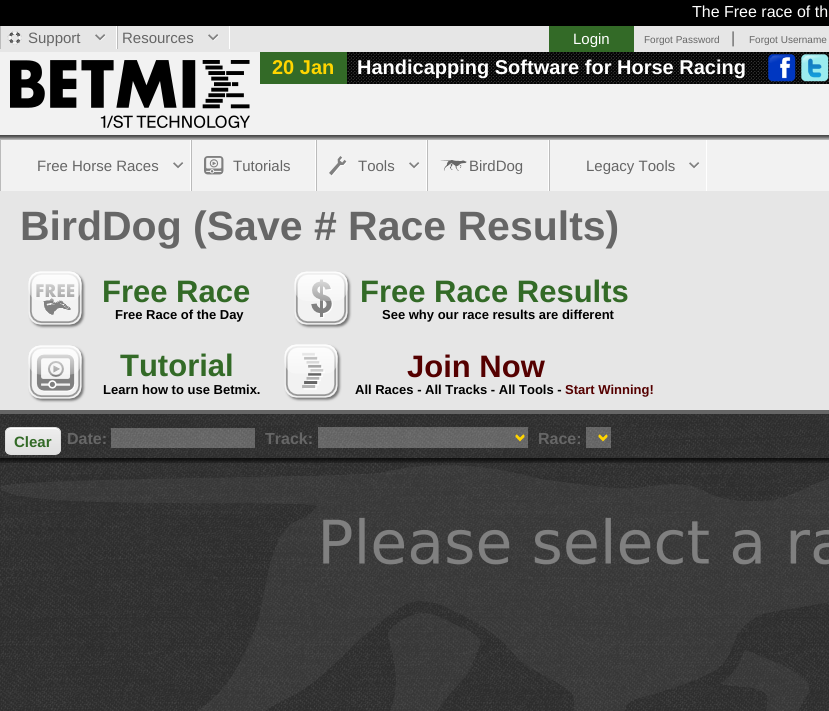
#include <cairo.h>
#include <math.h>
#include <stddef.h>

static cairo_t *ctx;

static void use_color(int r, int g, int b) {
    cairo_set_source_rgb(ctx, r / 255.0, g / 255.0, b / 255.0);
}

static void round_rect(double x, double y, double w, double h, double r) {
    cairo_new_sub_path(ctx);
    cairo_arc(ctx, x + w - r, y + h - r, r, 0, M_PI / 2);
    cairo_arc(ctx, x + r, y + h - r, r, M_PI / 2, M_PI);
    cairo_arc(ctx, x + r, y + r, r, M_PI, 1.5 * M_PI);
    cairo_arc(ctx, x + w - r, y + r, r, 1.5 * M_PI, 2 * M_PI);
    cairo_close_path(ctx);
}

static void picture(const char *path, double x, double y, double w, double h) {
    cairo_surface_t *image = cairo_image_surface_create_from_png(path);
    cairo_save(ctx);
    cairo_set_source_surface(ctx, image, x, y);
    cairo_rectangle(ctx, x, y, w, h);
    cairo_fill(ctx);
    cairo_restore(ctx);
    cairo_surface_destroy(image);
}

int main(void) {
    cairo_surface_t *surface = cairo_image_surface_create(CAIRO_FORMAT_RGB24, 829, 711);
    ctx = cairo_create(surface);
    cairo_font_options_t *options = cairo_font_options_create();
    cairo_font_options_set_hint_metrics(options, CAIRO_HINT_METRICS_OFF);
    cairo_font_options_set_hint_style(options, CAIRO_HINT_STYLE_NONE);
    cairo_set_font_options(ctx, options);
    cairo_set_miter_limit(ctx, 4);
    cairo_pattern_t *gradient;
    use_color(242, 242, 242);
    cairo_paint(ctx);
    use_color(0, 0, 0);
    cairo_rectangle(ctx, 0, 0, 829, 26);
    cairo_fill(ctx);
    cairo_select_font_face(ctx, "Liberation Sans", CAIRO_FONT_SLANT_NORMAL, CAIRO_FONT_WEIGHT_NORMAL);
    cairo_set_font_size(ctx, 16);
    use_color(255, 255, 255);
    cairo_move_to(ctx, 692, 17);
    cairo_show_text(ctx, "The Free race of th");
    use_color(230, 230, 230);
    cairo_rectangle(ctx, 0, 26, 829, 26);
    cairo_fill(ctx);
    picture("img1.png", 7, 31, 15, 14);
    use_color(255, 255, 255);
    cairo_rectangle(ctx, 116, 26, 1, 23);
    cairo_fill(ctx);
    use_color(187, 187, 187);
    cairo_rectangle(ctx, 0, 26, 1, 23);
    cairo_fill(ctx);
    picture("img2.png", 95, 34, 11, 7);
    cairo_set_font_size(ctx, 15);
    use_color(102, 102, 102);
    cairo_move_to(ctx, 28, 43);
    cairo_show_text(ctx, "Support");
    use_color(255, 255, 255);
    cairo_rectangle(ctx, 229, 26, 1, 23);
    cairo_fill(ctx);
    use_color(187, 187, 187);
    cairo_rectangle(ctx, 117, 26, 1, 23);
    cairo_fill(ctx);
    picture("img2.png", 208, 34, 11, 7);
    use_color(102, 102, 102);
    cairo_move_to(ctx, 122, 43);
    cairo_show_text(ctx, "Resources");
    use_color(51, 106, 39);
    cairo_rectangle(ctx, 549, 26, 85, 26);
    cairo_fill(ctx);
    use_color(255, 255, 255);
    cairo_move_to(ctx, 573, 44);
    cairo_show_text(ctx, "Login");
    cairo_set_font_size(ctx, 10);
    use_color(102, 102, 102);
    cairo_move_to(ctx, 644, 43);
    cairo_show_text(ctx, "Forgot Password");
    cairo_set_font_size(ctx, 16);
    cairo_move_to(ctx, 731, 43);
    cairo_show_text(ctx, "|");
    cairo_set_font_size(ctx, 10);
    cairo_move_to(ctx, 749, 43);
    cairo_show_text(ctx, "Forgot Username");
    picture("img3.png", 347, 52, 482, 32);
    picture("img4.png", 10, 60, 240, 68);
    use_color(51, 106, 39);
    cairo_rectangle(ctx, 260, 52, 87, 32);
    cairo_fill(ctx);
    cairo_select_font_face(ctx, "Liberation Sans", CAIRO_FONT_SLANT_NORMAL, CAIRO_FONT_WEIGHT_BOLD);
    cairo_set_font_size(ctx, 20);
    use_color(255, 213, 0);
    cairo_move_to(ctx, 272, 74);
    cairo_show_text(ctx, "20 Jan");
    use_color(255, 255, 255);
    cairo_move_to(ctx, 357, 74);
    cairo_show_text(ctx, "Handicapping Software for Horse Racing");
    picture("img5.png", 768, 54, 28, 28);
    picture("img6.png", 801, 54, 28, 28);
    picture("img7.png", 0, 135, 829, 5);
    cairo_rectangle(ctx, 190, 140, 1, 51);
    cairo_fill(ctx);
    use_color(187, 187, 187);
    cairo_rectangle(ctx, 0, 140, 1, 51);
    cairo_fill(ctx);
    picture("img8.png", 173, 162, 11, 7);
    cairo_select_font_face(ctx, "Liberation Sans", CAIRO_FONT_SLANT_NORMAL, CAIRO_FONT_WEIGHT_NORMAL);
    cairo_set_font_size(ctx, 15);
    use_color(102, 102, 102);
    cairo_move_to(ctx, 37, 171);
    cairo_show_text(ctx, "Free Horse Races");
    picture("img9.png", 204, 156, 20, 19);
    use_color(255, 255, 255);
    cairo_rectangle(ctx, 315, 140, 1, 51);
    cairo_fill(ctx);
    use_color(187, 187, 187);
    cairo_rectangle(ctx, 191, 140, 1, 51);
    cairo_fill(ctx);
    use_color(102, 102, 102);
    cairo_move_to(ctx, 233, 171);
    cairo_show_text(ctx, "Tutorials");
    picture("img10.png", 329, 156, 18, 20);
    use_color(255, 255, 255);
    cairo_rectangle(ctx, 426, 140, 1, 51);
    cairo_fill(ctx);
    use_color(187, 187, 187);
    cairo_rectangle(ctx, 316, 140, 1, 51);
    cairo_fill(ctx);
    picture("img8.png", 409, 162, 11, 7);
    use_color(102, 102, 102);
    cairo_move_to(ctx, 358, 171);
    cairo_show_text(ctx, "Tools");
    picture("img11.png", 440, 160, 27, 11);
    use_color(255, 255, 255);
    cairo_rectangle(ctx, 548, 140, 1, 51);
    cairo_fill(ctx);
    use_color(187, 187, 187);
    cairo_rectangle(ctx, 427, 140, 1, 51);
    cairo_fill(ctx);
    use_color(102, 102, 102);
    cairo_move_to(ctx, 469, 171);
    cairo_show_text(ctx, "BirdDog");
    use_color(255, 255, 255);
    cairo_rectangle(ctx, 706, 140, 1, 51);
    cairo_fill(ctx);
    use_color(187, 187, 187);
    cairo_rectangle(ctx, 549, 140, 1, 51);
    cairo_fill(ctx);
    picture("img8.png", 689, 162, 11, 7);
    use_color(102, 102, 102);
    cairo_move_to(ctx, 586, 171);
    cairo_show_text(ctx, "Legacy Tools");
    use_color(230, 230, 230);
    cairo_rectangle(ctx, 0, 191, 829, 219);
    cairo_fill(ctx);
    use_color(102, 102, 102);
    cairo_rectangle(ctx, 0, 410, 829, 4);
    cairo_fill(ctx);
    cairo_select_font_face(ctx, "Liberation Sans", CAIRO_FONT_SLANT_NORMAL, CAIRO_FONT_WEIGHT_BOLD);
    cairo_set_font_size(ctx, 41);
    cairo_move_to(ctx, 20, 240);
    cairo_show_text(ctx, "BirdDog (Save # Race Results)");
    picture("img12.png", 28, 271, 58, 58);
    cairo_set_font_size(ctx, 31);
    use_color(51, 106, 39);
    cairo_move_to(ctx, 102, 302);
    cairo_show_text(ctx, "Free Race");
    cairo_set_font_size(ctx, 13);
    use_color(0, 0, 0);
    cairo_move_to(ctx, 115, 319);
    cairo_show_text(ctx, "Free Race of the Day");
    picture("img13.png", 294, 271, 58, 58);
    cairo_set_font_size(ctx, 31);
    use_color(51, 106, 39);
    cairo_move_to(ctx, 360, 302);
    cairo_show_text(ctx, "Free Race Results");
    cairo_set_font_size(ctx, 13);
    use_color(0, 0, 0);
    cairo_move_to(ctx, 382, 319);
    cairo_show_text(ctx, "See why our race results are different");
    picture("img14.png", 28, 345, 58, 58);
    cairo_set_font_size(ctx, 31);
    use_color(51, 106, 39);
    cairo_move_to(ctx, 120, 376);
    cairo_show_text(ctx, "Tutorial");
    cairo_set_font_size(ctx, 13);
    use_color(0, 0, 0);
    cairo_move_to(ctx, 103, 394);
    cairo_show_text(ctx, "Learn how to use Betmix.");
    picture("img15.png", 284, 344, 58, 58);
    cairo_set_font_size(ctx, 31);
    use_color(85, 0, 0);
    cairo_move_to(ctx, 407, 377);
    cairo_show_text(ctx, "Join Now");
    cairo_set_font_size(ctx, 13);
    use_color(0, 0, 0);
    cairo_move_to(ctx, 355, 394);
    cairo_show_text(ctx, "All Races - All Tracks - All Tools -");
    use_color(85, 0, 0);
    cairo_move_to(ctx, 565, 394);
    cairo_show_text(ctx, "Start Winning!");
    picture("img16.png", 0, 414, 829, 297);
    cairo_save(ctx);
    round_rect(5, 427, 56, 28, 6);
    cairo_clip(ctx);
    gradient = cairo_pattern_create_linear(6, 428, 6, 454);
    cairo_pattern_add_color_stop_rgba(gradient, 0.05, 0.929, 0.929, 0.929, 1);
    cairo_pattern_add_color_stop_rgba(gradient, 1, 0.875, 0.875, 0.875, 1);
    cairo_set_source(ctx, gradient);
    cairo_pattern_destroy(gradient);
    cairo_rectangle(ctx, 5, 428, 56, 26);
    cairo_fill(ctx);
    cairo_restore(ctx);
    use_color(255, 255, 255);
    cairo_new_path(ctx);
    cairo_move_to(ctx, 11, 429);
    cairo_line_to(ctx, 55, 429);
    cairo_curve_to(ctx, 58, 429, 60, 431, 60, 434);
    cairo_curve_to(ctx, 60, 426, 53, 428, 48, 428);
    cairo_line_to(ctx, 18, 428);
    cairo_curve_to(ctx, 13, 428, 6, 426, 6, 434);
    cairo_curve_to(ctx, 6, 431, 8, 429, 11, 429);
    cairo_close_path(ctx);
    cairo_fill(ctx);
    round_rect(5.5, 427.5, 55, 27, 5.5);
    use_color(220, 220, 220);
    cairo_set_line_width(ctx, 1);
    cairo_stroke(ctx);
    cairo_set_font_size(ctx, 15);
    use_color(51, 106, 39);
    cairo_move_to(ctx, 14, 447);
    cairo_show_text(ctx, "Clear");
    cairo_set_font_size(ctx, 16);
    use_color(102, 102, 102);
    cairo_move_to(ctx, 67, 444);
    cairo_show_text(ctx, "Date:");
    picture("img17.png", 111, 428, 144, 20);
    cairo_move_to(ctx, 265, 444);
    cairo_show_text(ctx, "Track:");
    picture("img18.png", 318, 427, 210, 21);
    cairo_new_path(ctx);
    cairo_move_to(ctx, 516, 436);
    cairo_line_to(ctx, 520, 440);
    cairo_line_to(ctx, 524, 436);
    use_color(255, 213, 0);
    cairo_set_line_width(ctx, 2);
    cairo_stroke(ctx);
    use_color(102, 102, 102);
    cairo_move_to(ctx, 538, 444);
    cairo_show_text(ctx, "Race:");
    picture("img19.png", 586, 427, 25, 21);
    cairo_new_path(ctx);
    cairo_move_to(ctx, 599, 436);
    cairo_line_to(ctx, 603, 440);
    cairo_line_to(ctx, 607, 436);
    use_color(255, 213, 0);
    cairo_stroke(ctx);
    picture("img20.png", 0, 458, 829, 5);
    picture("img21.png", 0, 465, 829, 246);
    cairo_surface_write_to_png(surface, "result.png");
    cairo_font_options_destroy(options);
    cairo_destroy(ctx);
    cairo_surface_destroy(surface);
    return 0;
}
